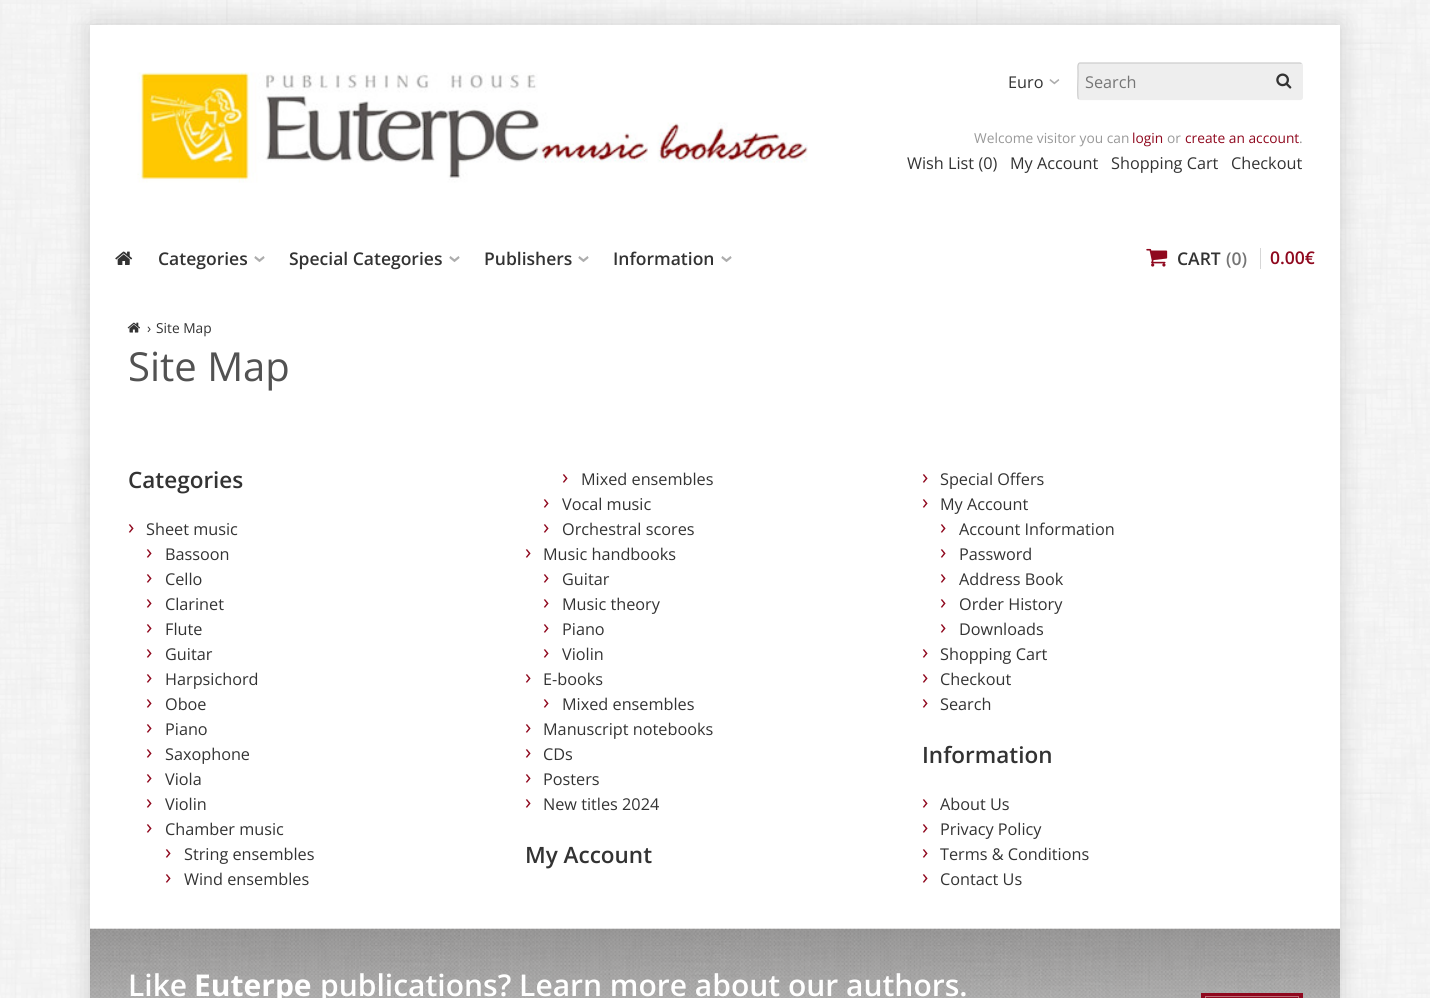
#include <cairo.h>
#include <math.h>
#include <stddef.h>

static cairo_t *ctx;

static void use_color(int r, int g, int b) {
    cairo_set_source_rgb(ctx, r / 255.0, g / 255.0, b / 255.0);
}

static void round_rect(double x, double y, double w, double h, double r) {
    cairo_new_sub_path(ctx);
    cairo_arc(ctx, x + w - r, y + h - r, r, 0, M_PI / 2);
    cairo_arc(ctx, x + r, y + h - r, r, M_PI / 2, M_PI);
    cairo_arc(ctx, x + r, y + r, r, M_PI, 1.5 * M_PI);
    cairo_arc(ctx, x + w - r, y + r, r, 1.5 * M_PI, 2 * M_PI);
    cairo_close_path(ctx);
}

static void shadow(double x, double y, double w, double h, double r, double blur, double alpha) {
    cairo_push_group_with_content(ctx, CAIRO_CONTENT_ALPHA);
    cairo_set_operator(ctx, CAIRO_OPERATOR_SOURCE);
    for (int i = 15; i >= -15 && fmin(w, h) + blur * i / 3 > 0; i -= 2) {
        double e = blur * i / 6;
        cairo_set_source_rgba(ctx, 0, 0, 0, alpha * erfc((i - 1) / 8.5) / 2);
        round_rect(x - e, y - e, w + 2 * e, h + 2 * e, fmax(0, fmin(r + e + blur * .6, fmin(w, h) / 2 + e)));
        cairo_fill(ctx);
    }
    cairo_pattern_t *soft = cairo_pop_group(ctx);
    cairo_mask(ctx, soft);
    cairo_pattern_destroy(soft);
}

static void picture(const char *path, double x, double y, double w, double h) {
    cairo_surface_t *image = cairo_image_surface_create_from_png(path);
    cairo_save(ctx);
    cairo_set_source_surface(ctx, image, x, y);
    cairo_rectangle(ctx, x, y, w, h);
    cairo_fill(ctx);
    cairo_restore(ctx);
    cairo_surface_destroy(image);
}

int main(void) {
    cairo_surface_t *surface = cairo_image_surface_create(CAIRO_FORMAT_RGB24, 1430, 998);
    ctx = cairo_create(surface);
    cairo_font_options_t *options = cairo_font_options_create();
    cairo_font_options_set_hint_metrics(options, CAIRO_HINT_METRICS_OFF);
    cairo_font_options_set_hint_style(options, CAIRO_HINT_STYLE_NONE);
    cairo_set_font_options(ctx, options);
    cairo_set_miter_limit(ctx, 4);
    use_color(255, 255, 255);
    cairo_paint(ctx);
    picture("img1.png", 0, 0, 1430, 998);
    use_color(0, 0, 0);
    shadow(90, 25, 1250, 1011, 0, 12.5, 0.15);
    use_color(255, 255, 255);
    cairo_rectangle(ctx, 90, 25, 1250, 904);
    cairo_fill(ctx);
    picture("img2.png", 137, 72, 671, 111);
    cairo_select_font_face(ctx, "Open Sans", CAIRO_FONT_SLANT_NORMAL, CAIRO_FONT_WEIGHT_NORMAL);
    cairo_set_font_size(ctx, 16.25);
    use_color(51, 51, 51);
    cairo_move_to(ctx, 1008, 88);
    cairo_show_text(ctx, "Euro");
    cairo_set_font_size(ctx, 24);
    use_color(173, 173, 173);
    cairo_save(ctx);
    cairo_translate(ctx, 1048, 78);
    cairo_rotate(ctx, 90 * M_PI / 180);
    cairo_move_to(ctx, 0, 0);
    cairo_show_text(ctx, "›");
    cairo_restore(ctx);
    use_color(238, 238, 238);
    round_rect(1078, 63, 225, 37, 2.5);
    cairo_fill(ctx);
    cairo_new_path(ctx);
    cairo_move_to(ctx, 1301.5, 63.5);
    cairo_curve_to(ctx, 1303, 65, 1302, 83.5, 1302, 86.5);
    cairo_line_to(ctx, 1302, 92);
    cairo_curve_to(ctx, 1302, 93, 1303, 99.5, 1300, 99.5);
    cairo_line_to(ctx, 1080, 99.5);
    cairo_line_to(ctx, 1078.5, 99);
    cairo_set_line_width(ctx, 1.2);
    cairo_stroke(ctx);
    cairo_new_path(ctx);
    cairo_move_to(ctx, 1078.5, 99);
    cairo_curve_to(ctx, 1077, 97.5, 1078, 79, 1078, 76);
    cairo_line_to(ctx, 1078, 70.5);
    cairo_curve_to(ctx, 1078, 69.5, 1077, 63, 1080, 63);
    cairo_line_to(ctx, 1300, 63);
    cairo_line_to(ctx, 1301.5, 63.5);
    use_color(204, 204, 204);
    cairo_stroke(ctx);
    cairo_set_font_size(ctx, 16.25);
    use_color(117, 117, 117);
    cairo_move_to(ctx, 1085, 88);
    cairo_show_text(ctx, "Search");
    picture("img3.png", 1276, 73, 16, 16);
    cairo_set_font_size(ctx, 13.75);
    use_color(153, 153, 153);
    cairo_move_to(ctx, 974, 143);
    cairo_show_text(ctx, "Welcome visitor you can");
    use_color(143, 8, 30);
    cairo_move_to(ctx, 1132, 143);
    cairo_show_text(ctx, "login");
    use_color(153, 153, 153);
    cairo_move_to(ctx, 1167, 143);
    cairo_show_text(ctx, "or");
    use_color(143, 8, 30);
    cairo_move_to(ctx, 1185, 143);
    cairo_show_text(ctx, "create an account");
    use_color(153, 153, 153);
    cairo_move_to(ctx, 1299, 143);
    cairo_show_text(ctx, ".");
    cairo_set_font_size(ctx, 16.25);
    use_color(51, 51, 51);
    cairo_move_to(ctx, 907, 169);
    cairo_show_text(ctx, "Wish List (0)");
    cairo_move_to(ctx, 1010, 169);
    cairo_show_text(ctx, "My Account");
    cairo_move_to(ctx, 1111, 169);
    cairo_show_text(ctx, "Shopping Cart");
    cairo_move_to(ctx, 1231, 169);
    cairo_show_text(ctx, "Checkout");
    picture("img4.png", 115, 251, 18, 14);
    cairo_select_font_face(ctx, "Open Sans SemiBold", CAIRO_FONT_SLANT_NORMAL, CAIRO_FONT_WEIGHT_NORMAL);
    cairo_set_font_size(ctx, 17.5);
    cairo_move_to(ctx, 158, 265);
    cairo_show_text(ctx, "Categories");
    cairo_set_font_size(ctx, 24);
    use_color(173, 173, 173);
    cairo_save(ctx);
    cairo_translate(ctx, 253, 255);
    cairo_rotate(ctx, 90 * M_PI / 180);
    cairo_move_to(ctx, 0, 0);
    cairo_show_text(ctx, "›");
    cairo_restore(ctx);
    cairo_set_font_size(ctx, 17.5);
    use_color(51, 51, 51);
    cairo_move_to(ctx, 289, 265);
    cairo_show_text(ctx, "Special Categories");
    cairo_set_font_size(ctx, 24);
    use_color(173, 173, 173);
    cairo_save(ctx);
    cairo_translate(ctx, 448, 255);
    cairo_rotate(ctx, 90 * M_PI / 180);
    cairo_move_to(ctx, 0, 0);
    cairo_show_text(ctx, "›");
    cairo_restore(ctx);
    cairo_set_font_size(ctx, 17.5);
    use_color(51, 51, 51);
    cairo_move_to(ctx, 484, 265);
    cairo_show_text(ctx, "Publishers");
    cairo_set_font_size(ctx, 24);
    use_color(173, 173, 173);
    cairo_save(ctx);
    cairo_translate(ctx, 577, 255);
    cairo_rotate(ctx, 90 * M_PI / 180);
    cairo_move_to(ctx, 0, 0);
    cairo_show_text(ctx, "›");
    cairo_restore(ctx);
    cairo_set_font_size(ctx, 17.5);
    use_color(51, 51, 51);
    cairo_move_to(ctx, 613, 265);
    cairo_show_text(ctx, "Information");
    cairo_set_font_size(ctx, 24);
    use_color(173, 173, 173);
    cairo_save(ctx);
    cairo_translate(ctx, 720, 255);
    cairo_rotate(ctx, 90 * M_PI / 180);
    cairo_move_to(ctx, 0, 0);
    cairo_show_text(ctx, "›");
    cairo_restore(ctx);
    picture("img5.png", 1146, 248, 22, 19);
    cairo_set_font_size(ctx, 17.5);
    use_color(51, 51, 51);
    cairo_move_to(ctx, 1177, 265);
    cairo_show_text(ctx, "CART");
    use_color(117, 117, 117);
    cairo_move_to(ctx, 1226, 265);
    cairo_show_text(ctx, "(0)");
    use_color(214, 214, 214);
    cairo_rectangle(ctx, 1260, 248, 1, 21);
    cairo_fill(ctx);
    use_color(143, 8, 30);
    cairo_move_to(ctx, 1270, 264);
    cairo_show_text(ctx, "0.00€");
    picture("img6.png", 127, 322, 13, 11);
    cairo_select_font_face(ctx, "Open Sans", CAIRO_FONT_SLANT_NORMAL, CAIRO_FONT_WEIGHT_NORMAL);
    cairo_set_font_size(ctx, 13.75);
    use_color(51, 51, 51);
    cairo_move_to(ctx, 147, 333);
    cairo_show_text(ctx, "›");
    cairo_move_to(ctx, 156, 333);
    cairo_show_text(ctx, "Site Map");
    cairo_set_font_size(ctx, 40);
    use_color(82, 82, 82);
    cairo_move_to(ctx, 128, 381);
    cairo_show_text(ctx, "Site Map");
    cairo_select_font_face(ctx, "Open Sans SemiBold", CAIRO_FONT_SLANT_NORMAL, CAIRO_FONT_WEIGHT_NORMAL);
    cairo_set_font_size(ctx, 22.5);
    use_color(51, 51, 51);
    cairo_move_to(ctx, 128, 488);
    cairo_show_text(ctx, "Categories");
    cairo_select_font_face(ctx, "Open Sans", CAIRO_FONT_SLANT_NORMAL, CAIRO_FONT_WEIGHT_NORMAL);
    cairo_set_font_size(ctx, 21);
    use_color(143, 8, 30);
    cairo_move_to(ctx, 562, 484);
    cairo_show_text(ctx, "›");
    cairo_set_font_size(ctx, 16.25);
    use_color(51, 51, 51);
    cairo_move_to(ctx, 581, 485);
    cairo_show_text(ctx, "Mixed ensembles");
    cairo_set_font_size(ctx, 21);
    use_color(143, 8, 30);
    cairo_move_to(ctx, 165, 859);
    cairo_show_text(ctx, "›");
    cairo_set_font_size(ctx, 16.25);
    use_color(51, 51, 51);
    cairo_move_to(ctx, 184, 860);
    cairo_show_text(ctx, "String ensembles");
    cairo_set_font_size(ctx, 21);
    use_color(143, 8, 30);
    cairo_move_to(ctx, 165, 884);
    cairo_show_text(ctx, "›");
    cairo_set_font_size(ctx, 16.25);
    use_color(51, 51, 51);
    cairo_move_to(ctx, 184, 885);
    cairo_show_text(ctx, "Wind ensembles");
    cairo_set_font_size(ctx, 21);
    use_color(143, 8, 30);
    cairo_move_to(ctx, 146, 834);
    cairo_show_text(ctx, "›");
    cairo_set_font_size(ctx, 16.25);
    use_color(51, 51, 51);
    cairo_move_to(ctx, 165, 835);
    cairo_show_text(ctx, "Chamber music");
    cairo_set_font_size(ctx, 21);
    use_color(143, 8, 30);
    cairo_move_to(ctx, 543, 509);
    cairo_show_text(ctx, "›");
    cairo_set_font_size(ctx, 16.25);
    use_color(51, 51, 51);
    cairo_move_to(ctx, 562, 510);
    cairo_show_text(ctx, "Vocal music");
    cairo_set_font_size(ctx, 21);
    use_color(143, 8, 30);
    cairo_move_to(ctx, 543, 534);
    cairo_show_text(ctx, "›");
    cairo_set_font_size(ctx, 16.25);
    use_color(51, 51, 51);
    cairo_move_to(ctx, 562, 535);
    cairo_show_text(ctx, "Orchestral scores");
    cairo_set_font_size(ctx, 21);
    use_color(143, 8, 30);
    cairo_move_to(ctx, 146, 559);
    cairo_show_text(ctx, "›");
    cairo_set_font_size(ctx, 16.25);
    use_color(51, 51, 51);
    cairo_move_to(ctx, 165, 560);
    cairo_show_text(ctx, "Bassoon");
    cairo_set_font_size(ctx, 21);
    use_color(143, 8, 30);
    cairo_move_to(ctx, 146, 584);
    cairo_show_text(ctx, "›");
    cairo_set_font_size(ctx, 16.25);
    use_color(51, 51, 51);
    cairo_move_to(ctx, 165, 585);
    cairo_show_text(ctx, "Cello");
    cairo_set_font_size(ctx, 21);
    use_color(143, 8, 30);
    cairo_move_to(ctx, 146, 609);
    cairo_show_text(ctx, "›");
    cairo_set_font_size(ctx, 16.25);
    use_color(51, 51, 51);
    cairo_move_to(ctx, 165, 610);
    cairo_show_text(ctx, "Clarinet");
    cairo_set_font_size(ctx, 21);
    use_color(143, 8, 30);
    cairo_move_to(ctx, 146, 634);
    cairo_show_text(ctx, "›");
    cairo_set_font_size(ctx, 16.25);
    use_color(51, 51, 51);
    cairo_move_to(ctx, 165, 635);
    cairo_show_text(ctx, "Flute");
    cairo_set_font_size(ctx, 21);
    use_color(143, 8, 30);
    cairo_move_to(ctx, 146, 659);
    cairo_show_text(ctx, "›");
    cairo_set_font_size(ctx, 16.25);
    use_color(51, 51, 51);
    cairo_move_to(ctx, 165, 660);
    cairo_show_text(ctx, "Guitar");
    cairo_set_font_size(ctx, 21);
    use_color(143, 8, 30);
    cairo_move_to(ctx, 146, 684);
    cairo_show_text(ctx, "›");
    cairo_set_font_size(ctx, 16.25);
    use_color(51, 51, 51);
    cairo_move_to(ctx, 165, 685);
    cairo_show_text(ctx, "Harpsichord");
    cairo_set_font_size(ctx, 21);
    use_color(143, 8, 30);
    cairo_move_to(ctx, 146, 709);
    cairo_show_text(ctx, "›");
    cairo_set_font_size(ctx, 16.25);
    use_color(51, 51, 51);
    cairo_move_to(ctx, 165, 710);
    cairo_show_text(ctx, "Oboe");
    cairo_set_font_size(ctx, 21);
    use_color(143, 8, 30);
    cairo_move_to(ctx, 146, 734);
    cairo_show_text(ctx, "›");
    cairo_set_font_size(ctx, 16.25);
    use_color(51, 51, 51);
    cairo_move_to(ctx, 165, 735);
    cairo_show_text(ctx, "Piano");
    cairo_set_font_size(ctx, 21);
    use_color(143, 8, 30);
    cairo_move_to(ctx, 146, 759);
    cairo_show_text(ctx, "›");
    cairo_set_font_size(ctx, 16.25);
    use_color(51, 51, 51);
    cairo_move_to(ctx, 165, 760);
    cairo_show_text(ctx, "Saxophone");
    cairo_set_font_size(ctx, 21);
    use_color(143, 8, 30);
    cairo_move_to(ctx, 146, 784);
    cairo_show_text(ctx, "›");
    cairo_set_font_size(ctx, 16.25);
    use_color(51, 51, 51);
    cairo_move_to(ctx, 165, 785);
    cairo_show_text(ctx, "Viola");
    cairo_set_font_size(ctx, 21);
    use_color(143, 8, 30);
    cairo_move_to(ctx, 146, 809);
    cairo_show_text(ctx, "›");
    cairo_set_font_size(ctx, 16.25);
    use_color(51, 51, 51);
    cairo_move_to(ctx, 165, 810);
    cairo_show_text(ctx, "Violin");
    cairo_set_font_size(ctx, 21);
    use_color(143, 8, 30);
    cairo_move_to(ctx, 128, 534);
    cairo_show_text(ctx, "›");
    cairo_set_font_size(ctx, 16.25);
    use_color(51, 51, 51);
    cairo_move_to(ctx, 146, 535);
    cairo_show_text(ctx, "Sheet music");
    cairo_set_font_size(ctx, 21);
    use_color(143, 8, 30);
    cairo_move_to(ctx, 525, 559);
    cairo_show_text(ctx, "›");
    cairo_set_font_size(ctx, 16.25);
    use_color(51, 51, 51);
    cairo_move_to(ctx, 543, 560);
    cairo_show_text(ctx, "Music handbooks");
    cairo_set_font_size(ctx, 21);
    use_color(143, 8, 30);
    cairo_move_to(ctx, 543, 584);
    cairo_show_text(ctx, "›");
    cairo_set_font_size(ctx, 16.25);
    use_color(51, 51, 51);
    cairo_move_to(ctx, 562, 585);
    cairo_show_text(ctx, "Guitar");
    cairo_set_font_size(ctx, 21);
    use_color(143, 8, 30);
    cairo_move_to(ctx, 543, 609);
    cairo_show_text(ctx, "›");
    cairo_set_font_size(ctx, 16.25);
    use_color(51, 51, 51);
    cairo_move_to(ctx, 562, 610);
    cairo_show_text(ctx, "Music theory");
    cairo_set_font_size(ctx, 21);
    use_color(143, 8, 30);
    cairo_move_to(ctx, 543, 634);
    cairo_show_text(ctx, "›");
    cairo_set_font_size(ctx, 16.25);
    use_color(51, 51, 51);
    cairo_move_to(ctx, 562, 635);
    cairo_show_text(ctx, "Piano");
    cairo_set_font_size(ctx, 21);
    use_color(143, 8, 30);
    cairo_move_to(ctx, 543, 659);
    cairo_show_text(ctx, "›");
    cairo_set_font_size(ctx, 16.25);
    use_color(51, 51, 51);
    cairo_move_to(ctx, 562, 660);
    cairo_show_text(ctx, "Violin");
    cairo_set_font_size(ctx, 21);
    use_color(143, 8, 30);
    cairo_move_to(ctx, 525, 684);
    cairo_show_text(ctx, "›");
    cairo_set_font_size(ctx, 16.25);
    use_color(51, 51, 51);
    cairo_move_to(ctx, 543, 685);
    cairo_show_text(ctx, "E-books");
    cairo_set_font_size(ctx, 21);
    use_color(143, 8, 30);
    cairo_move_to(ctx, 543, 709);
    cairo_show_text(ctx, "›");
    cairo_set_font_size(ctx, 16.25);
    use_color(51, 51, 51);
    cairo_move_to(ctx, 562, 710);
    cairo_show_text(ctx, "Mixed ensembles");
    cairo_set_font_size(ctx, 21);
    use_color(143, 8, 30);
    cairo_move_to(ctx, 525, 734);
    cairo_show_text(ctx, "›");
    cairo_set_font_size(ctx, 16.25);
    use_color(51, 51, 51);
    cairo_move_to(ctx, 543, 735);
    cairo_show_text(ctx, "Manuscript notebooks");
    cairo_set_font_size(ctx, 21);
    use_color(143, 8, 30);
    cairo_move_to(ctx, 525, 759);
    cairo_show_text(ctx, "›");
    cairo_set_font_size(ctx, 16.25);
    use_color(51, 51, 51);
    cairo_move_to(ctx, 543, 760);
    cairo_show_text(ctx, "CDs");
    cairo_set_font_size(ctx, 21);
    use_color(143, 8, 30);
    cairo_move_to(ctx, 525, 784);
    cairo_show_text(ctx, "›");
    cairo_set_font_size(ctx, 16.25);
    use_color(51, 51, 51);
    cairo_move_to(ctx, 543, 785);
    cairo_show_text(ctx, "Posters");
    cairo_set_font_size(ctx, 21);
    use_color(143, 8, 30);
    cairo_move_to(ctx, 525, 809);
    cairo_show_text(ctx, "›");
    cairo_set_font_size(ctx, 16.25);
    use_color(51, 51, 51);
    cairo_move_to(ctx, 543, 810);
    cairo_show_text(ctx, "New titles 2024");
    cairo_set_font_size(ctx, 21);
    use_color(143, 8, 30);
    cairo_move_to(ctx, 922, 484);
    cairo_show_text(ctx, "›");
    cairo_set_font_size(ctx, 16.25);
    use_color(51, 51, 51);
    cairo_move_to(ctx, 940, 485);
    cairo_show_text(ctx, "Special Offers");
    cairo_set_font_size(ctx, 21);
    use_color(143, 8, 30);
    cairo_move_to(ctx, 922, 509);
    cairo_show_text(ctx, "›");
    cairo_set_font_size(ctx, 16.25);
    use_color(51, 51, 51);
    cairo_move_to(ctx, 940, 510);
    cairo_show_text(ctx, "My Account");
    cairo_set_font_size(ctx, 21);
    use_color(143, 8, 30);
    cairo_move_to(ctx, 940, 534);
    cairo_show_text(ctx, "›");
    cairo_set_font_size(ctx, 16.25);
    use_color(51, 51, 51);
    cairo_move_to(ctx, 959, 535);
    cairo_show_text(ctx, "Account Information");
    cairo_set_font_size(ctx, 21);
    use_color(143, 8, 30);
    cairo_move_to(ctx, 940, 559);
    cairo_show_text(ctx, "›");
    cairo_set_font_size(ctx, 16.25);
    use_color(51, 51, 51);
    cairo_move_to(ctx, 959, 560);
    cairo_show_text(ctx, "Password");
    cairo_set_font_size(ctx, 21);
    use_color(143, 8, 30);
    cairo_move_to(ctx, 940, 584);
    cairo_show_text(ctx, "›");
    cairo_set_font_size(ctx, 16.25);
    use_color(51, 51, 51);
    cairo_move_to(ctx, 959, 585);
    cairo_show_text(ctx, "Address Book");
    cairo_set_font_size(ctx, 21);
    use_color(143, 8, 30);
    cairo_move_to(ctx, 940, 609);
    cairo_show_text(ctx, "›");
    cairo_set_font_size(ctx, 16.25);
    use_color(51, 51, 51);
    cairo_move_to(ctx, 959, 610);
    cairo_show_text(ctx, "Order History");
    cairo_set_font_size(ctx, 21);
    use_color(143, 8, 30);
    cairo_move_to(ctx, 940, 634);
    cairo_show_text(ctx, "›");
    cairo_set_font_size(ctx, 16.25);
    use_color(51, 51, 51);
    cairo_move_to(ctx, 959, 635);
    cairo_show_text(ctx, "Downloads");
    cairo_set_font_size(ctx, 21);
    use_color(143, 8, 30);
    cairo_move_to(ctx, 922, 659);
    cairo_show_text(ctx, "›");
    cairo_set_font_size(ctx, 16.25);
    use_color(51, 51, 51);
    cairo_move_to(ctx, 940, 660);
    cairo_show_text(ctx, "Shopping Cart");
    cairo_set_font_size(ctx, 21);
    use_color(143, 8, 30);
    cairo_move_to(ctx, 922, 684);
    cairo_show_text(ctx, "›");
    cairo_set_font_size(ctx, 16.25);
    use_color(51, 51, 51);
    cairo_move_to(ctx, 940, 685);
    cairo_show_text(ctx, "Checkout");
    cairo_set_font_size(ctx, 21);
    use_color(143, 8, 30);
    cairo_move_to(ctx, 922, 709);
    cairo_show_text(ctx, "›");
    cairo_set_font_size(ctx, 16.25);
    use_color(51, 51, 51);
    cairo_move_to(ctx, 940, 710);
    cairo_show_text(ctx, "Search");
    cairo_select_font_face(ctx, "Open Sans SemiBold", CAIRO_FONT_SLANT_NORMAL, CAIRO_FONT_WEIGHT_NORMAL);
    cairo_set_font_size(ctx, 22.5);
    cairo_move_to(ctx, 922, 763);
    cairo_show_text(ctx, "Information");
    cairo_move_to(ctx, 525, 863);
    cairo_show_text(ctx, "My Account");
    cairo_select_font_face(ctx, "Open Sans", CAIRO_FONT_SLANT_NORMAL, CAIRO_FONT_WEIGHT_NORMAL);
    cairo_set_font_size(ctx, 21);
    use_color(143, 8, 30);
    cairo_move_to(ctx, 922, 809);
    cairo_show_text(ctx, "›");
    cairo_set_font_size(ctx, 16.25);
    use_color(51, 51, 51);
    cairo_move_to(ctx, 940, 810);
    cairo_show_text(ctx, "About Us");
    cairo_set_font_size(ctx, 21);
    use_color(143, 8, 30);
    cairo_move_to(ctx, 922, 834);
    cairo_show_text(ctx, "›");
    cairo_set_font_size(ctx, 16.25);
    use_color(51, 51, 51);
    cairo_move_to(ctx, 940, 835);
    cairo_show_text(ctx, "Privacy Policy");
    cairo_set_font_size(ctx, 21);
    use_color(143, 8, 30);
    cairo_move_to(ctx, 922, 859);
    cairo_show_text(ctx, "›");
    cairo_set_font_size(ctx, 16.25);
    use_color(51, 51, 51);
    cairo_move_to(ctx, 940, 860);
    cairo_show_text(ctx, "Terms & Conditions");
    cairo_set_font_size(ctx, 21);
    use_color(143, 8, 30);
    cairo_move_to(ctx, 922, 884);
    cairo_show_text(ctx, "›");
    cairo_set_font_size(ctx, 16.25);
    use_color(51, 51, 51);
    cairo_move_to(ctx, 940, 885);
    cairo_show_text(ctx, "Contact Us");
    picture("img7.png", 90, 928, 1250, 70);
    cairo_select_font_face(ctx, "Open Sans SemiBold", CAIRO_FONT_SLANT_NORMAL, CAIRO_FONT_WEIGHT_NORMAL);
    cairo_set_font_size(ctx, 30);
    use_color(255, 255, 255);
    cairo_move_to(ctx, 128, 996);
    cairo_show_text(ctx, "Like");
    cairo_select_font_face(ctx, "Open Sans", CAIRO_FONT_SLANT_NORMAL, CAIRO_FONT_WEIGHT_BOLD);
    cairo_move_to(ctx, 194, 996);
    cairo_show_text(ctx, "Euterpe");
    cairo_select_font_face(ctx, "Open Sans SemiBold", CAIRO_FONT_SLANT_NORMAL, CAIRO_FONT_WEIGHT_NORMAL);
    cairo_move_to(ctx, 320, 996);
    cairo_show_text(ctx, "publications? Learn more about our authors.");
    use_color(143, 8, 30);
    cairo_rectangle(ctx, 1201, 993, 102, 5);
    cairo_fill(ctx);
    cairo_rectangle(ctx, 1205.5, 996.5, 93, 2);
    use_color(188, 107, 120);
    cairo_set_line_width(ctx, 1);
    cairo_stroke(ctx);
    cairo_surface_write_to_png(surface, "result.png");
    cairo_font_options_destroy(options);
    cairo_destroy(ctx);
    cairo_surface_destroy(surface);
    return 0;
}
